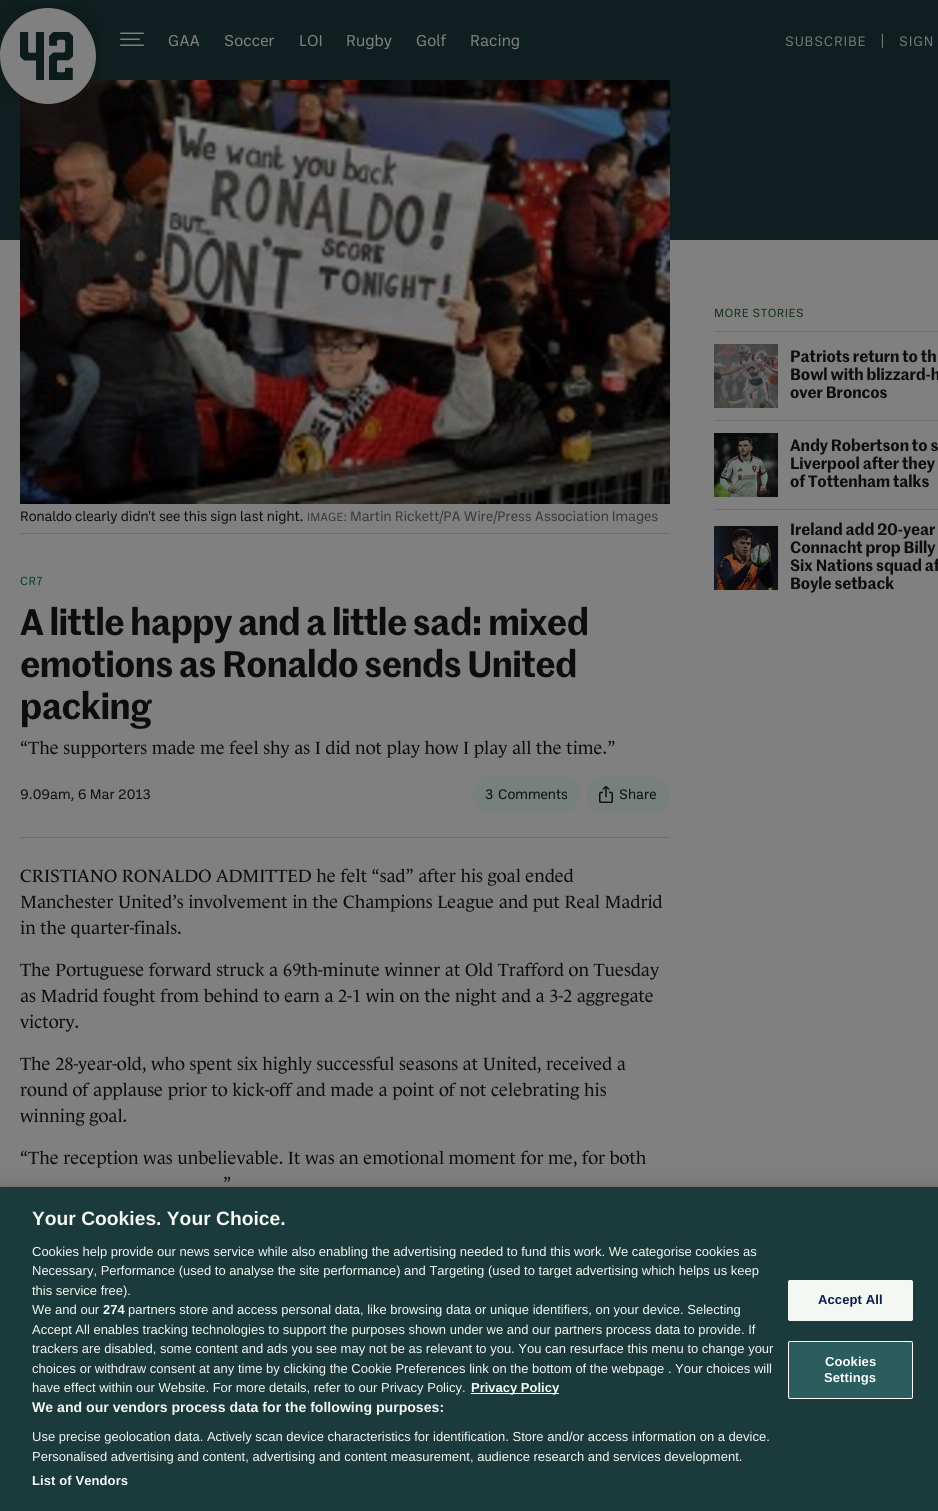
#include <cairo.h>
#include <math.h>
#include <stddef.h>

static cairo_t *ctx;

static void use_color(int r, int g, int b) {
    cairo_set_source_rgb(ctx, r / 255.0, g / 255.0, b / 255.0);
}

static void spaced_text(double x, double y, const char *s, double letter, double word) {
    cairo_move_to(ctx, x, y);
    while (*s) {
        char ch[5] = {0};
        int n = 0;
        do ch[n++] = *s++; while ((*s & 0xC0) == 0x80);
        cairo_show_text(ctx, ch);
        cairo_rel_move_to(ctx, letter + word * (*ch == ' '), 0);
    }
}

static void round_rect(double x, double y, double w, double h, double r) {
    cairo_new_sub_path(ctx);
    cairo_arc(ctx, x + w - r, y + h - r, r, 0, M_PI / 2);
    cairo_arc(ctx, x + r, y + h - r, r, M_PI / 2, M_PI);
    cairo_arc(ctx, x + r, y + r, r, M_PI, 1.5 * M_PI);
    cairo_arc(ctx, x + w - r, y + r, r, 1.5 * M_PI, 2 * M_PI);
    cairo_close_path(ctx);
}

static void shadow(double x, double y, double w, double h, double r, double blur, double alpha) {
    cairo_push_group_with_content(ctx, CAIRO_CONTENT_ALPHA);
    cairo_set_operator(ctx, CAIRO_OPERATOR_SOURCE);
    for (int i = 15; i >= -15 && fmin(w, h) + blur * i / 3 > 0; i -= 2) {
        double e = blur * i / 6;
        cairo_set_source_rgba(ctx, 0, 0, 0, alpha * erfc((i - 1) / 8.5) / 2);
        round_rect(x - e, y - e, w + 2 * e, h + 2 * e, fmax(0, fmin(r + e + blur * .6, fmin(w, h) / 2 + e)));
        cairo_fill(ctx);
    }
    cairo_pattern_t *soft = cairo_pop_group(ctx);
    cairo_mask(ctx, soft);
    cairo_pattern_destroy(soft);
}

static void picture(const char *path, double x, double y, double w, double h) {
    cairo_surface_t *image = cairo_image_surface_create_from_png(path);
    cairo_save(ctx);
    cairo_set_source_surface(ctx, image, x, y);
    cairo_rectangle(ctx, x, y, w, h);
    cairo_fill(ctx);
    cairo_restore(ctx);
    cairo_surface_destroy(image);
}

int main(void) {
    cairo_surface_t *surface = cairo_image_surface_create(CAIRO_FORMAT_RGB24, 938, 1511);
    ctx = cairo_create(surface);
    cairo_font_options_t *options = cairo_font_options_create();
    cairo_font_options_set_hint_metrics(options, CAIRO_HINT_METRICS_OFF);
    cairo_font_options_set_hint_style(options, CAIRO_HINT_STYLE_NONE);
    cairo_set_font_options(ctx, options);
    cairo_set_miter_limit(ctx, 4);
    use_color(128, 128, 128);
    cairo_paint(ctx);
    use_color(15, 30, 30);
    cairo_rectangle(ctx, 0, 0, 938, 240);
    cairo_fill(ctx);
    picture("img6.png", 20, 80, 650, 424);
    picture("img1.png", 0, 5, 99, 99);
    picture("img2.png", 120, 32, 24, 14);
    cairo_select_font_face(ctx, "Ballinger", CAIRO_FONT_SLANT_NORMAL, CAIRO_FONT_WEIGHT_NORMAL);
    cairo_set_font_size(ctx, 16);
    use_color(128, 128, 128);
    cairo_move_to(ctx, 168, 46);
    cairo_show_text(ctx, "GAA");
    cairo_move_to(ctx, 224, 46);
    cairo_show_text(ctx, "Soccer");
    cairo_move_to(ctx, 299, 46);
    cairo_show_text(ctx, "LOI");
    cairo_move_to(ctx, 346, 46);
    cairo_show_text(ctx, "Rugby");
    cairo_move_to(ctx, 416, 46);
    cairo_show_text(ctx, "Golf");
    cairo_move_to(ctx, 470, 46);
    cairo_show_text(ctx, "Racing");
    cairo_set_font_size(ctx, 14);
    use_color(116, 118, 118);
    spaced_text(785, 46, "SUBSCRIBE", 0.75, 0);
    use_color(128, 128, 128);
    spaced_text(879, 45, "|", 0.75, 0);
    use_color(116, 118, 118);
    spaced_text(899, 46, "SIGN", 0.75, 0);
    use_color(110, 110, 110);
    cairo_rectangle(ctx, 714, 331, 224, 1);
    cairo_fill(ctx);
    cairo_set_font_size(ctx, 12);
    use_color(18, 49, 23);
    spaced_text(714, 317, "MORE STORIES", 0.5, 0);
    use_color(110, 110, 110);
    cairo_rectangle(ctx, 714, 420, 224, 1);
    cairo_fill(ctx);
    picture("img3.png", 714, 344, 64, 64);
    cairo_select_font_face(ctx, "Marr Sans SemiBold", CAIRO_FONT_SLANT_NORMAL, CAIRO_FONT_WEIGHT_NORMAL);
    cairo_set_font_size(ctx, 16);
    use_color(13, 13, 13);
    spaced_text(790, 362, "Patriots return to th", -0.05, 0);
    spaced_text(790, 380, "Bowl with blizzard-h", -0.05, 0);
    spaced_text(790, 398, "over Broncos", -0.05, 0);
    use_color(110, 110, 110);
    cairo_rectangle(ctx, 714, 509, 224, 1);
    cairo_fill(ctx);
    picture("img4.png", 714, 433, 64, 64);
    use_color(13, 13, 13);
    spaced_text(790, 451, "Andy Robertson to s", -0.05, 0);
    spaced_text(790, 469, "Liverpool after they", -0.05, 0);
    spaced_text(790, 487, "of Tottenham talks", -0.05, 0);
    picture("img5.png", 714, 526, 64, 64);
    spaced_text(790, 535, "Ireland add 20-year", -0.05, 0);
    spaced_text(790, 553, "Connacht prop Billy", -0.05, 0);
    spaced_text(790, 571, "Six Nations squad af", -0.05, 0);
    spaced_text(790, 589, "Boyle setback", -0.05, 0);
    cairo_select_font_face(ctx, "Ballinger", CAIRO_FONT_SLANT_NORMAL, CAIRO_FONT_WEIGHT_NORMAL);
    cairo_set_font_size(ctx, 14);
    spaced_text(20, 521, "Ronaldo clearly didn't see this sign last night.", -0.05, 0);
    cairo_set_font_size(ctx, 12);
    use_color(56, 56, 56);
    cairo_move_to(ctx, 307, 521);
    cairo_show_text(ctx, "IMAGE:");
    cairo_set_font_size(ctx, 14);
    spaced_text(350, 521, "Martin Rickett/PA Wire/Press Association Images", -0.05, 0);
    use_color(110, 110, 110);
    cairo_rectangle(ctx, 20, 533, 650, 1);
    cairo_fill(ctx);
    cairo_rectangle(ctx, 20, 837, 650, 1);
    cairo_fill(ctx);
    cairo_set_font_size(ctx, 12);
    use_color(5, 67, 35);
    spaced_text(20, 585, "CR7", 0.5, 0);
    cairo_select_font_face(ctx, "Marr Sans SemiBold", CAIRO_FONT_SLANT_NORMAL, CAIRO_FONT_WEIGHT_NORMAL);
    cairo_set_font_size(ctx, 36);
    use_color(13, 13, 13);
    spaced_text(20, 635, "A little happy and a little sad: mixed", -0.55, 0);
    spaced_text(20, 677, "emotions as Ronaldo sends United", -0.55, 0);
    spaced_text(20, 719, "packing", -0.55, 0);
    cairo_select_font_face(ctx, "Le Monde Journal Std", CAIRO_FONT_SLANT_NORMAL, CAIRO_FONT_WEIGHT_NORMAL);
    cairo_set_font_size(ctx, 18);
    cairo_move_to(ctx, 20, 754);
    cairo_show_text(ctx, "“The supporters made me feel shy as I did not play how I play all the time.”");
    cairo_select_font_face(ctx, "Ballinger", CAIRO_FONT_SLANT_NORMAL, CAIRO_FONT_WEIGHT_NORMAL);
    cairo_set_font_size(ctx, 14);
    cairo_move_to(ctx, 20, 799);
    cairo_show_text(ctx, "9.09am, 6 Mar 2013");
    use_color(119, 128, 124);
    round_rect(472, 776, 108, 37, 18.5);
    cairo_fill(ctx);
    use_color(13, 13, 13);
    cairo_move_to(ctx, 485, 799);
    cairo_show_text(ctx, "3");
    cairo_move_to(ctx, 498, 799);
    cairo_show_text(ctx, "Comments");
    use_color(119, 128, 124);
    round_rect(586, 776, 84, 37, 18.5);
    cairo_fill(ctx);
    picture("img7.png", 599, 786, 14, 17);
    use_color(13, 13, 13);
    cairo_move_to(ctx, 619, 799);
    cairo_show_text(ctx, "Share");
    cairo_select_font_face(ctx, "Le Monde Journal Std", CAIRO_FONT_SLANT_NORMAL, CAIRO_FONT_WEIGHT_NORMAL);
    cairo_set_font_size(ctx, 18);
    cairo_move_to(ctx, 20, 882);
    cairo_show_text(ctx, "CRISTIANO RONALDO ADMITTED he felt “sad” after his goal ended");
    cairo_move_to(ctx, 20, 908);
    cairo_show_text(ctx, "Manchester United’s involvement in the Champions League and put Real Madrid");
    cairo_move_to(ctx, 20, 934);
    cairo_show_text(ctx, "in the quarter-finals.");
    cairo_move_to(ctx, 20, 976);
    cairo_show_text(ctx, "The Portuguese forward struck a 69th-minute winner at Old Trafford on Tuesday");
    cairo_move_to(ctx, 20, 1002);
    cairo_show_text(ctx, "as Madrid fought from behind to earn a 2-1 win on the night and a 3-2 aggregate");
    cairo_move_to(ctx, 20, 1028);
    cairo_show_text(ctx, "victory.");
    cairo_move_to(ctx, 20, 1070);
    cairo_show_text(ctx, "The 28-year-old, who spent six highly successful seasons at United, received a");
    cairo_move_to(ctx, 20, 1096);
    cairo_show_text(ctx, "round of applause prior to kick-off and made a point of not celebrating his");
    cairo_move_to(ctx, 20, 1122);
    cairo_show_text(ctx, "winning goal.");
    cairo_move_to(ctx, 20, 1164);
    cairo_show_text(ctx, "“The reception was unbelievable. It was an emotional moment for me, for both");
    cairo_move_to(ctx, 223, 1190);
    cairo_show_text(ctx, "”");
    use_color(0, 0, 0);
    shadow(0, 1187, 938, 324, 0, 9, 0.2);
    use_color(27, 58, 59);
    cairo_rectangle(ctx, 0, 1187, 938, 324);
    cairo_fill(ctx);
    cairo_select_font_face(ctx, "Liberation Sans", CAIRO_FONT_SLANT_NORMAL, CAIRO_FONT_WEIGHT_BOLD);
    cairo_set_font_size(ctx, 19.25);
    use_color(244, 247, 242);
    cairo_move_to(ctx, 32, 1225);
    cairo_show_text(ctx, "Your Cookies. Your Choice.");
    cairo_select_font_face(ctx, "Liberation Sans", CAIRO_FONT_SLANT_NORMAL, CAIRO_FONT_WEIGHT_NORMAL);
    cairo_set_font_size(ctx, 13);
    cairo_move_to(ctx, 32, 1256);
    cairo_show_text(ctx, "Cookies help provide our news service while also enabling the advertising needed to fund this work. We categorise cookies as");
    cairo_move_to(ctx, 32, 1275);
    cairo_show_text(ctx, "Necessary, Performance (used to analyse the site performance) and Targeting (used to target advertising which helps us keep");
    cairo_move_to(ctx, 32, 1295);
    cairo_show_text(ctx, "this service free).");
    cairo_move_to(ctx, 32, 1314);
    cairo_show_text(ctx, "We and our");
    cairo_select_font_face(ctx, "Liberation Sans", CAIRO_FONT_SLANT_NORMAL, CAIRO_FONT_WEIGHT_BOLD);
    cairo_move_to(ctx, 103, 1314);
    cairo_show_text(ctx, "274");
    cairo_select_font_face(ctx, "Liberation Sans", CAIRO_FONT_SLANT_NORMAL, CAIRO_FONT_WEIGHT_NORMAL);
    cairo_move_to(ctx, 128, 1314);
    cairo_show_text(ctx, "partners store and access personal data, like browsing data or unique identifiers, on your device. Selecting");
    cairo_move_to(ctx, 32, 1334);
    cairo_show_text(ctx, "Accept All enables tracking technologies to support the purposes shown under we and our partners process data to provide. If");
    cairo_move_to(ctx, 32, 1353);
    cairo_show_text(ctx, "trackers are disabled, some content and ads you see may not be as relevant to you. You can resurface this menu to change your");
    cairo_move_to(ctx, 32, 1373);
    cairo_show_text(ctx, "choices or withdraw consent at any time by clicking the Cookie Preferences link on the bottom of the webpage . Your choices will");
    cairo_move_to(ctx, 32, 1392);
    cairo_show_text(ctx, "have effect within our Website. For more details, refer to our Privacy Policy.");
    use_color(245, 255, 247);
    cairo_rectangle(ctx, 471, 1393, 88, 1);
    cairo_fill(ctx);
    cairo_select_font_face(ctx, "Liberation Sans", CAIRO_FONT_SLANT_NORMAL, CAIRO_FONT_WEIGHT_BOLD);
    cairo_move_to(ctx, 471, 1392);
    cairo_show_text(ctx, "Privacy Policy");
    cairo_set_font_size(ctx, 14.1);
    use_color(244, 247, 242);
    cairo_move_to(ctx, 32, 1412);
    cairo_show_text(ctx, "We and our vendors process data for the following purposes:");
    cairo_select_font_face(ctx, "Liberation Sans", CAIRO_FONT_SLANT_NORMAL, CAIRO_FONT_WEIGHT_NORMAL);
    cairo_set_font_size(ctx, 13);
    cairo_move_to(ctx, 32, 1441);
    cairo_show_text(ctx, "Use precise geolocation data. Actively scan device characteristics for identification. Store and/or access information on a device.");
    cairo_move_to(ctx, 32, 1461);
    cairo_show_text(ctx, "Personalised advertising and content, advertising and content measurement, audience research and services development.");
    cairo_select_font_face(ctx, "Liberation Sans", CAIRO_FONT_SLANT_NORMAL, CAIRO_FONT_WEIGHT_BOLD);
    use_color(245, 255, 247);
    spaced_text(32, 1485, "List of Vendors", 0.1, 0);
    use_color(244, 247, 242);
    round_rect(788.5, 1280.5, 124, 40, 1.5);
    cairo_fill_preserve(ctx);
    cairo_set_line_width(ctx, 1);
    cairo_stroke(ctx);
    use_color(8, 27, 79);
    spaced_text(818, 1304, "Accept All", 0.1, 0);
    use_color(43, 93, 94);
    round_rect(788.5, 1341.5, 124, 57, 1.5);
    cairo_fill_preserve(ctx);
    use_color(255, 255, 255);
    cairo_stroke(ctx);
    spaced_text(825, 1366, "Cookies", 0.1, 0);
    spaced_text(824, 1382, "Settings", 0.1, 0);
    cairo_surface_write_to_png(surface, "result.png");
    cairo_font_options_destroy(options);
    cairo_destroy(ctx);
    cairo_surface_destroy(surface);
    return 0;
}
